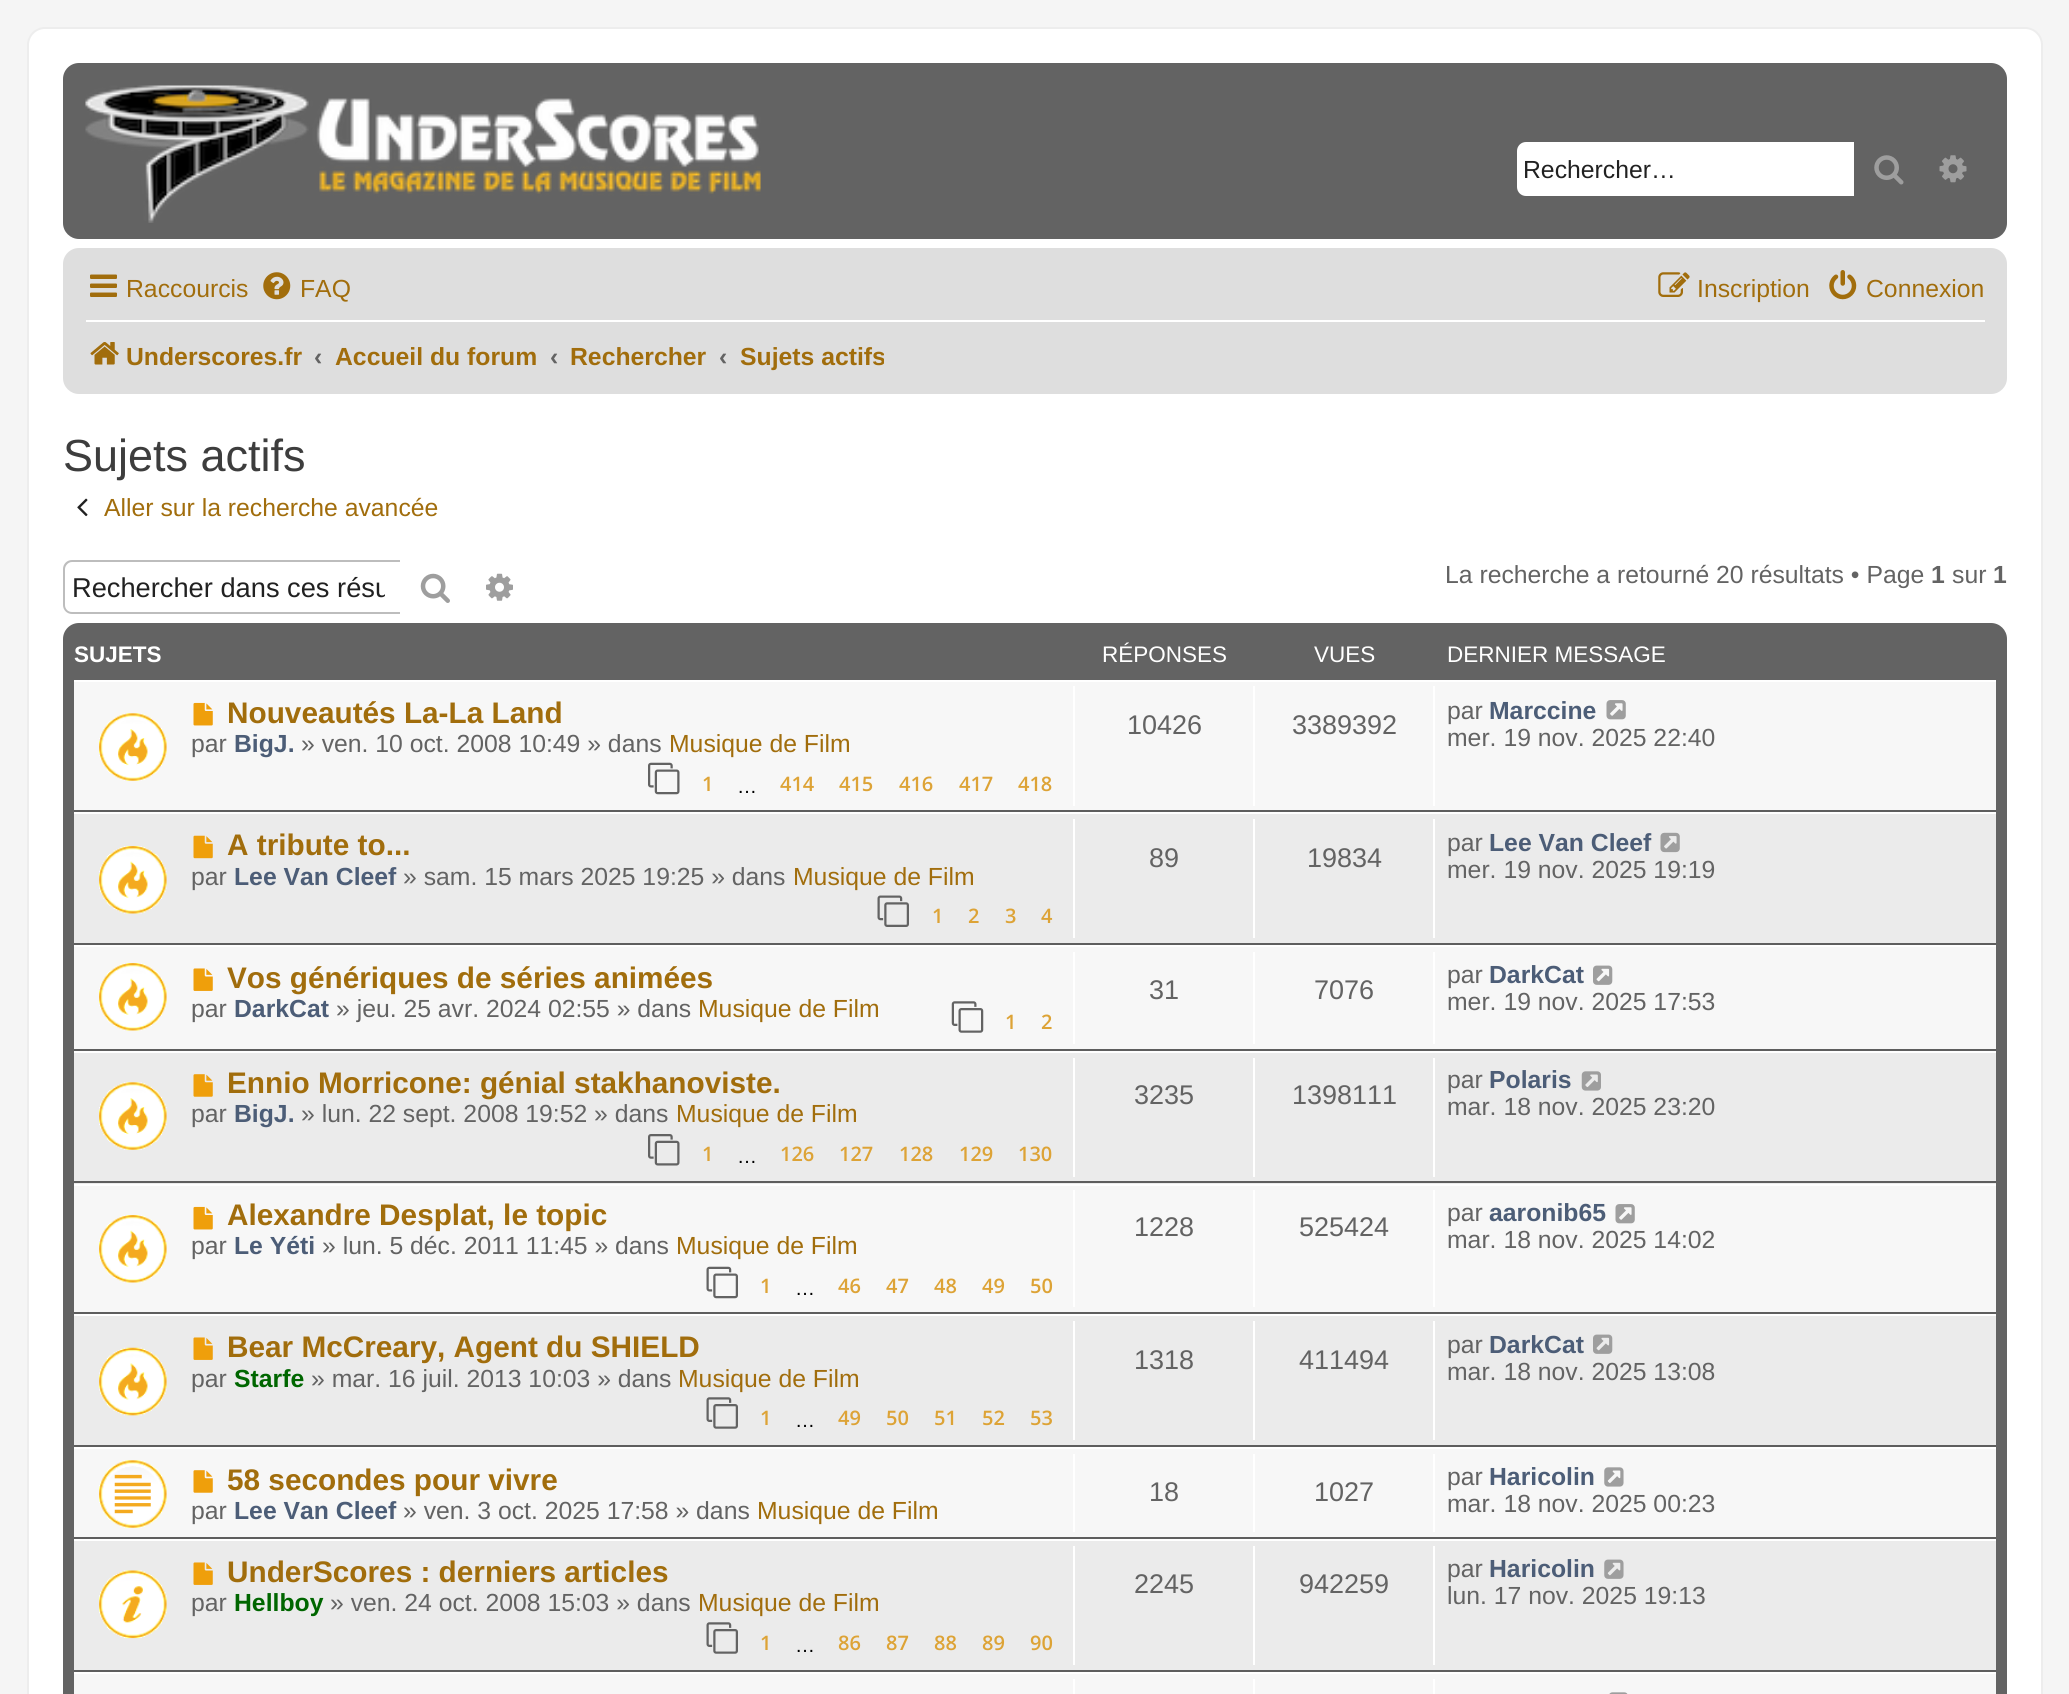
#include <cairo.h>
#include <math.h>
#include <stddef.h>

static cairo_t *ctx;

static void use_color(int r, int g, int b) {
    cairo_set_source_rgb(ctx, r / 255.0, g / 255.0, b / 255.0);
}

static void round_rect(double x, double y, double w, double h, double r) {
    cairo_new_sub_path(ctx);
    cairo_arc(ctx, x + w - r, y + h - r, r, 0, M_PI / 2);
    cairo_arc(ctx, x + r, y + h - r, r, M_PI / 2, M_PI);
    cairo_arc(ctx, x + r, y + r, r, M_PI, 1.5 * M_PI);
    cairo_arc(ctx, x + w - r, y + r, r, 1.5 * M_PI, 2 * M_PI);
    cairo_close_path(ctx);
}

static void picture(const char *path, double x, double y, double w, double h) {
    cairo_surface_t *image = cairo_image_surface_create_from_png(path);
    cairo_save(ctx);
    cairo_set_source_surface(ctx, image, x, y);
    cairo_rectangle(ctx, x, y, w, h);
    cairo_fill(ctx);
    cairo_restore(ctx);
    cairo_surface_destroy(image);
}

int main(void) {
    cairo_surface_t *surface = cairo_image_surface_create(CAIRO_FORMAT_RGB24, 2069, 1694);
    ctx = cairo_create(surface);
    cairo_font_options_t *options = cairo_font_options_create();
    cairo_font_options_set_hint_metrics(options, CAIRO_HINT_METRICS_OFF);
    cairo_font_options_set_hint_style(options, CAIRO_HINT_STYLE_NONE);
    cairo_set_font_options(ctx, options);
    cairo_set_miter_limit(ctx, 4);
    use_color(245, 245, 245);
    cairo_paint(ctx);
    use_color(255, 255, 255);
    round_rect(28, 28, 2014, 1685, 17);
    cairo_fill_preserve(ctx);
    use_color(237, 237, 237);
    cairo_stroke(ctx);
    use_color(99, 99, 99);
    round_rect(63, 63, 1944, 176, 16);
    cairo_fill(ctx);
    picture("img1.png", 85, 85, 676, 138);
    use_color(255, 255, 255);
    cairo_new_path(ctx);
    cairo_move_to(ctx, 1526, 142);
    cairo_line_to(ctx, 1854, 142);
    cairo_line_to(ctx, 1854, 196);
    cairo_line_to(ctx, 1526, 196);
    cairo_curve_to(ctx, 1521, 196, 1517, 192, 1517, 187);
    cairo_line_to(ctx, 1517, 151);
    cairo_curve_to(ctx, 1517, 146, 1521, 142, 1526, 142);
    cairo_close_path(ctx);
    cairo_fill(ctx);
    cairo_select_font_face(ctx, "Liberation Sans", CAIRO_FONT_SLANT_NORMAL, CAIRO_FONT_WEIGHT_NORMAL);
    cairo_set_font_size(ctx, 24.75);
    use_color(33, 33, 33);
    cairo_move_to(ctx, 1523, 178);
    cairo_show_text(ctx, "Rechercher…");
    picture("img2.png", 1874, 155, 30, 30);
    picture("img3.png", 1939, 155, 28, 28);
    use_color(222, 222, 222);
    round_rect(63, 248, 1944, 146, 16);
    cairo_fill(ctx);
    picture("img4.png", 90, 274, 27, 23);
    use_color(161, 109, 12);
    cairo_move_to(ctx, 126, 297);
    cairo_show_text(ctx, "Raccourcis");
    picture("img5.png", 263, 272, 28, 28);
    cairo_move_to(ctx, 300, 297);
    cairo_show_text(ctx, "FAQ");
    picture("img6.png", 1658, 272, 32, 25);
    cairo_move_to(ctx, 1697, 297);
    cairo_show_text(ctx, "Inscription");
    picture("img7.png", 1829, 270, 28, 30);
    cairo_move_to(ctx, 1866, 297);
    cairo_show_text(ctx, "Connexion");
    use_color(255, 255, 255);
    cairo_rectangle(ctx, 86, 320, 1899, 2);
    cairo_fill(ctx);
    picture("img8.png", 90, 342, 29, 23);
    cairo_select_font_face(ctx, "Liberation Sans", CAIRO_FONT_SLANT_NORMAL, CAIRO_FONT_WEIGHT_BOLD);
    use_color(161, 109, 12);
    cairo_move_to(ctx, 126, 365);
    cairo_show_text(ctx, "Underscores.fr");
    use_color(99, 99, 99);
    cairo_move_to(ctx, 314, 365);
    cairo_show_text(ctx, "‹");
    use_color(161, 109, 12);
    cairo_move_to(ctx, 335, 365);
    cairo_show_text(ctx, "Accueil du forum");
    use_color(99, 99, 99);
    cairo_move_to(ctx, 550, 365);
    cairo_show_text(ctx, "‹");
    use_color(161, 109, 12);
    cairo_move_to(ctx, 570, 365);
    cairo_show_text(ctx, "Rechercher");
    use_color(99, 99, 99);
    cairo_move_to(ctx, 719, 365);
    cairo_show_text(ctx, "‹");
    cairo_save(ctx);
    cairo_rectangle(ctx, 740, 329, 144, 54);
    cairo_clip(ctx);
    use_color(161, 109, 12);
    cairo_move_to(ctx, 740, 365);
    cairo_show_text(ctx, "Sujets actifs");
    cairo_restore(ctx);
    cairo_select_font_face(ctx, "Liberation Sans", CAIRO_FONT_SLANT_NORMAL, CAIRO_FONT_WEIGHT_NORMAL);
    cairo_set_font_size(ctx, 45);
    use_color(61, 61, 61);
    cairo_move_to(ctx, 63, 471);
    cairo_show_text(ctx, "Sujets actifs");
    picture("img9.png", 77, 498, 11, 19);
    cairo_set_font_size(ctx, 24.75);
    use_color(161, 109, 12);
    cairo_move_to(ctx, 104, 516);
    cairo_show_text(ctx, "Aller sur la recherche avancée");
    use_color(189, 189, 189);
    cairo_set_fill_rule(ctx, CAIRO_FILL_RULE_EVEN_ODD);
    cairo_new_path(ctx);
    cairo_move_to(ctx, 72, 560);
    cairo_line_to(ctx, 400, 560);
    cairo_line_to(ctx, 400, 614);
    cairo_line_to(ctx, 72, 614);
    cairo_curve_to(ctx, 67, 614, 63, 610, 63, 605);
    cairo_line_to(ctx, 63, 569);
    cairo_curve_to(ctx, 63, 564, 67, 560, 72, 560);
    cairo_close_path(ctx);
    cairo_move_to(ctx, 72, 562);
    cairo_line_to(ctx, 400, 562);
    cairo_line_to(ctx, 400, 612);
    cairo_line_to(ctx, 72, 612);
    cairo_curve_to(ctx, 68, 612, 65, 609, 65, 605);
    cairo_line_to(ctx, 65, 569);
    cairo_curve_to(ctx, 65, 566, 68, 562, 72, 562);
    cairo_close_path(ctx);
    cairo_fill(ctx);
    cairo_save(ctx);
    cairo_set_fill_rule(ctx, CAIRO_FILL_RULE_WINDING);
    cairo_rectangle(ctx, 72, 572, 313, 31);
    cairo_clip(ctx);
    cairo_set_font_size(ctx, 27.25);
    use_color(33, 33, 33);
    cairo_move_to(ctx, 72, 597);
    cairo_show_text(ctx, "Rechercher dans ces résu");
    cairo_restore(ctx);
    picture("img10.png", 420, 573, 30, 30);
    picture("img11.png", 486, 573, 27, 28);
    use_color(99, 99, 99);
    cairo_move_to(ctx, 1445, 583);
    cairo_show_text(ctx, "La recherche a retourné 20 résultats • Page");
    cairo_select_font_face(ctx, "Liberation Sans", CAIRO_FONT_SLANT_NORMAL, CAIRO_FONT_WEIGHT_BOLD);
    cairo_move_to(ctx, 1931, 583);
    cairo_show_text(ctx, "1");
    cairo_select_font_face(ctx, "Liberation Sans", CAIRO_FONT_SLANT_NORMAL, CAIRO_FONT_WEIGHT_NORMAL);
    cairo_move_to(ctx, 1952, 583);
    cairo_show_text(ctx, "sur");
    cairo_select_font_face(ctx, "Liberation Sans", CAIRO_FONT_SLANT_NORMAL, CAIRO_FONT_WEIGHT_BOLD);
    cairo_move_to(ctx, 1993, 583);
    cairo_show_text(ctx, "1");
    round_rect(63, 623, 1944, 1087, 16);
    cairo_fill(ctx);
    cairo_set_font_size(ctx, 22.5);
    use_color(255, 255, 255);
    cairo_move_to(ctx, 74, 662);
    cairo_show_text(ctx, "SUJETS");
    cairo_select_font_face(ctx, "Liberation Sans", CAIRO_FONT_SLANT_NORMAL, CAIRO_FONT_WEIGHT_NORMAL);
    cairo_move_to(ctx, 1102, 662);
    cairo_show_text(ctx, "RÉPONSES");
    cairo_move_to(ctx, 1314, 662);
    cairo_show_text(ctx, "VUES");
    cairo_move_to(ctx, 1447, 662);
    cairo_show_text(ctx, "DERNIER MESSAGE");
    use_color(247, 247, 247);
    cairo_rectangle(ctx, 74, 682, 1922, 128);
    cairo_fill(ctx);
    use_color(255, 255, 255);
    cairo_rectangle(ctx, 74, 680, 1922, 2);
    cairo_fill(ctx);
    use_color(94, 94, 94);
    cairo_rectangle(ctx, 74, 810, 1922, 2);
    cairo_fill(ctx);
    picture("img12.png", 99, 713, 68, 68);
    picture("img13.png", 193, 702, 20, 24);
    cairo_select_font_face(ctx, "Liberation Sans", CAIRO_FONT_SLANT_NORMAL, CAIRO_FONT_WEIGHT_BOLD);
    cairo_set_font_size(ctx, 29.75);
    use_color(161, 109, 12);
    cairo_move_to(ctx, 227, 723);
    cairo_show_text(ctx, "Nouveautés La-La Land");
    cairo_select_font_face(ctx, "Liberation Sans", CAIRO_FONT_SLANT_NORMAL, CAIRO_FONT_WEIGHT_NORMAL);
    cairo_set_font_size(ctx, 24.75);
    use_color(99, 99, 99);
    cairo_move_to(ctx, 191, 752);
    cairo_show_text(ctx, "par");
    cairo_select_font_face(ctx, "Liberation Sans", CAIRO_FONT_SLANT_NORMAL, CAIRO_FONT_WEIGHT_BOLD);
    use_color(76, 93, 119);
    cairo_move_to(ctx, 234, 752);
    cairo_show_text(ctx, "BigJ.");
    cairo_select_font_face(ctx, "Liberation Sans", CAIRO_FONT_SLANT_NORMAL, CAIRO_FONT_WEIGHT_NORMAL);
    use_color(99, 99, 99);
    cairo_move_to(ctx, 301, 752);
    cairo_show_text(ctx, "» ven. 10 oct. 2008 10:49 » dans");
    use_color(161, 109, 12);
    cairo_move_to(ctx, 669, 752);
    cairo_show_text(ctx, "Musique de Film");
    picture("img14.png", 648, 762, 32, 33);
    cairo_select_font_face(ctx, "Open Sans SemiBold", CAIRO_FONT_SLANT_NORMAL, CAIRO_FONT_WEIGHT_NORMAL);
    cairo_set_font_size(ctx, 20);
    use_color(221, 163, 54);
    cairo_move_to(ctx, 702, 791);
    cairo_show_text(ctx, "1");
    cairo_select_font_face(ctx, "Liberation Sans", CAIRO_FONT_SLANT_NORMAL, CAIRO_FONT_WEIGHT_NORMAL);
    use_color(0, 0, 0);
    cairo_move_to(ctx, 737, 793);
    cairo_show_text(ctx, "…");
    cairo_select_font_face(ctx, "Open Sans SemiBold", CAIRO_FONT_SLANT_NORMAL, CAIRO_FONT_WEIGHT_NORMAL);
    use_color(221, 163, 54);
    cairo_move_to(ctx, 780, 791);
    cairo_show_text(ctx, "414");
    cairo_move_to(ctx, 839, 791);
    cairo_show_text(ctx, "415");
    cairo_move_to(ctx, 899, 791);
    cairo_show_text(ctx, "416");
    cairo_move_to(ctx, 959, 791);
    cairo_show_text(ctx, "417");
    cairo_move_to(ctx, 1018, 791);
    cairo_show_text(ctx, "418");
    use_color(255, 255, 255);
    cairo_rectangle(ctx, 1073, 686, 2, 120);
    cairo_fill(ctx);
    cairo_select_font_face(ctx, "Liberation Sans", CAIRO_FONT_SLANT_NORMAL, CAIRO_FONT_WEIGHT_NORMAL);
    cairo_set_font_size(ctx, 27);
    use_color(99, 99, 99);
    cairo_move_to(ctx, 1127, 734);
    cairo_show_text(ctx, "10426");
    use_color(255, 255, 255);
    cairo_rectangle(ctx, 1253, 686, 2, 120);
    cairo_fill(ctx);
    use_color(99, 99, 99);
    cairo_move_to(ctx, 1292, 734);
    cairo_show_text(ctx, "3389392");
    use_color(255, 255, 255);
    cairo_rectangle(ctx, 1433, 686, 2, 120);
    cairo_fill(ctx);
    cairo_set_font_size(ctx, 24.75);
    use_color(99, 99, 99);
    cairo_move_to(ctx, 1447, 719);
    cairo_show_text(ctx, "par");
    cairo_select_font_face(ctx, "Liberation Sans", CAIRO_FONT_SLANT_NORMAL, CAIRO_FONT_WEIGHT_BOLD);
    use_color(76, 93, 119);
    cairo_move_to(ctx, 1489, 719);
    cairo_show_text(ctx, "Marccine");
    picture("img15.png", 1606, 700, 20, 20);
    cairo_select_font_face(ctx, "Liberation Sans", CAIRO_FONT_SLANT_NORMAL, CAIRO_FONT_WEIGHT_NORMAL);
    use_color(99, 99, 99);
    cairo_move_to(ctx, 1447, 746);
    cairo_show_text(ctx, "mer. 19 nov. 2025 22:40");
    use_color(235, 235, 235);
    cairo_rectangle(ctx, 74, 814, 1922, 129);
    cairo_fill(ctx);
    use_color(255, 255, 255);
    cairo_rectangle(ctx, 74, 812, 1922, 2);
    cairo_fill(ctx);
    use_color(94, 94, 94);
    cairo_rectangle(ctx, 74, 943, 1922, 2);
    cairo_fill(ctx);
    picture("img16.png", 99, 846, 68, 68);
    picture("img17.png", 193, 835, 20, 24);
    cairo_select_font_face(ctx, "Liberation Sans", CAIRO_FONT_SLANT_NORMAL, CAIRO_FONT_WEIGHT_BOLD);
    cairo_set_font_size(ctx, 29.75);
    use_color(161, 109, 12);
    cairo_move_to(ctx, 227, 855);
    cairo_show_text(ctx, "A tribute to...");
    cairo_select_font_face(ctx, "Liberation Sans", CAIRO_FONT_SLANT_NORMAL, CAIRO_FONT_WEIGHT_NORMAL);
    cairo_set_font_size(ctx, 24.75);
    use_color(99, 99, 99);
    cairo_move_to(ctx, 191, 885);
    cairo_show_text(ctx, "par");
    cairo_select_font_face(ctx, "Liberation Sans", CAIRO_FONT_SLANT_NORMAL, CAIRO_FONT_WEIGHT_BOLD);
    use_color(76, 93, 119);
    cairo_move_to(ctx, 234, 885);
    cairo_show_text(ctx, "Lee Van Cleef");
    cairo_select_font_face(ctx, "Liberation Sans", CAIRO_FONT_SLANT_NORMAL, CAIRO_FONT_WEIGHT_NORMAL);
    use_color(99, 99, 99);
    cairo_move_to(ctx, 403, 885);
    cairo_show_text(ctx, "» sam. 15 mars 2025 19:25 » dans");
    use_color(161, 109, 12);
    cairo_move_to(ctx, 793, 885);
    cairo_show_text(ctx, "Musique de Film");
    picture("img18.png", 877, 895, 32, 32);
    cairo_select_font_face(ctx, "Open Sans SemiBold", CAIRO_FONT_SLANT_NORMAL, CAIRO_FONT_WEIGHT_NORMAL);
    cairo_set_font_size(ctx, 20);
    use_color(221, 163, 54);
    cairo_move_to(ctx, 932, 923);
    cairo_show_text(ctx, "1");
    cairo_move_to(ctx, 968, 923);
    cairo_show_text(ctx, "2");
    cairo_move_to(ctx, 1005, 923);
    cairo_show_text(ctx, "3");
    cairo_move_to(ctx, 1041, 923);
    cairo_show_text(ctx, "4");
    use_color(255, 255, 255);
    cairo_rectangle(ctx, 1073, 819, 2, 119);
    cairo_fill(ctx);
    cairo_select_font_face(ctx, "Liberation Sans", CAIRO_FONT_SLANT_NORMAL, CAIRO_FONT_WEIGHT_NORMAL);
    cairo_set_font_size(ctx, 27);
    use_color(99, 99, 99);
    cairo_move_to(ctx, 1149, 867);
    cairo_show_text(ctx, "89");
    use_color(255, 255, 255);
    cairo_rectangle(ctx, 1253, 819, 2, 119);
    cairo_fill(ctx);
    use_color(99, 99, 99);
    cairo_move_to(ctx, 1307, 867);
    cairo_show_text(ctx, "19834");
    use_color(255, 255, 255);
    cairo_rectangle(ctx, 1433, 819, 2, 119);
    cairo_fill(ctx);
    cairo_set_font_size(ctx, 24.75);
    use_color(99, 99, 99);
    cairo_move_to(ctx, 1447, 851);
    cairo_show_text(ctx, "par");
    cairo_select_font_face(ctx, "Liberation Sans", CAIRO_FONT_SLANT_NORMAL, CAIRO_FONT_WEIGHT_BOLD);
    use_color(76, 93, 119);
    cairo_move_to(ctx, 1489, 851);
    cairo_show_text(ctx, "Lee Van Cleef");
    picture("img19.png", 1660, 832, 20, 21);
    cairo_select_font_face(ctx, "Liberation Sans", CAIRO_FONT_SLANT_NORMAL, CAIRO_FONT_WEIGHT_NORMAL);
    use_color(99, 99, 99);
    cairo_move_to(ctx, 1447, 878);
    cairo_show_text(ctx, "mer. 19 nov. 2025 19:19");
    use_color(247, 247, 247);
    cairo_rectangle(ctx, 74, 947, 1922, 102);
    cairo_fill(ctx);
    use_color(255, 255, 255);
    cairo_rectangle(ctx, 74, 945, 1922, 2);
    cairo_fill(ctx);
    use_color(94, 94, 94);
    cairo_rectangle(ctx, 74, 1049, 1922, 2);
    cairo_fill(ctx);
    picture("img20.png", 99, 963, 68, 68);
    picture("img21.png", 193, 968, 20, 23);
    cairo_select_font_face(ctx, "Liberation Sans", CAIRO_FONT_SLANT_NORMAL, CAIRO_FONT_WEIGHT_BOLD);
    cairo_set_font_size(ctx, 29.75);
    use_color(161, 109, 12);
    cairo_move_to(ctx, 227, 988);
    cairo_show_text(ctx, "Vos génériques de séries animées");
    cairo_select_font_face(ctx, "Liberation Sans", CAIRO_FONT_SLANT_NORMAL, CAIRO_FONT_WEIGHT_NORMAL);
    cairo_set_font_size(ctx, 24.75);
    use_color(99, 99, 99);
    cairo_move_to(ctx, 191, 1017);
    cairo_show_text(ctx, "par");
    cairo_select_font_face(ctx, "Liberation Sans", CAIRO_FONT_SLANT_NORMAL, CAIRO_FONT_WEIGHT_BOLD);
    use_color(76, 93, 119);
    cairo_move_to(ctx, 234, 1017);
    cairo_show_text(ctx, "DarkCat");
    cairo_select_font_face(ctx, "Liberation Sans", CAIRO_FONT_SLANT_NORMAL, CAIRO_FONT_WEIGHT_NORMAL);
    use_color(99, 99, 99);
    cairo_move_to(ctx, 336, 1017);
    cairo_show_text(ctx, "» jeu. 25 avr. 2024 02:55 » dans");
    use_color(161, 109, 12);
    cairo_move_to(ctx, 698, 1017);
    cairo_show_text(ctx, "Musique de Film");
    picture("img22.png", 951, 1001, 33, 32);
    cairo_select_font_face(ctx, "Open Sans SemiBold", CAIRO_FONT_SLANT_NORMAL, CAIRO_FONT_WEIGHT_NORMAL);
    cairo_set_font_size(ctx, 20);
    use_color(221, 163, 54);
    cairo_move_to(ctx, 1005, 1029);
    cairo_show_text(ctx, "1");
    cairo_move_to(ctx, 1041, 1029);
    cairo_show_text(ctx, "2");
    use_color(255, 255, 255);
    cairo_rectangle(ctx, 1073, 952, 2, 92);
    cairo_fill(ctx);
    cairo_select_font_face(ctx, "Liberation Sans", CAIRO_FONT_SLANT_NORMAL, CAIRO_FONT_WEIGHT_NORMAL);
    cairo_set_font_size(ctx, 27);
    use_color(99, 99, 99);
    cairo_move_to(ctx, 1149, 999);
    cairo_show_text(ctx, "31");
    use_color(255, 255, 255);
    cairo_rectangle(ctx, 1253, 952, 2, 92);
    cairo_fill(ctx);
    use_color(99, 99, 99);
    cairo_move_to(ctx, 1314, 999);
    cairo_show_text(ctx, "7076");
    use_color(255, 255, 255);
    cairo_rectangle(ctx, 1433, 952, 2, 92);
    cairo_fill(ctx);
    cairo_set_font_size(ctx, 24.75);
    use_color(99, 99, 99);
    cairo_move_to(ctx, 1447, 983);
    cairo_show_text(ctx, "par");
    cairo_select_font_face(ctx, "Liberation Sans", CAIRO_FONT_SLANT_NORMAL, CAIRO_FONT_WEIGHT_BOLD);
    use_color(76, 93, 119);
    cairo_move_to(ctx, 1489, 983);
    cairo_show_text(ctx, "DarkCat");
    picture("img23.png", 1593, 965, 20, 20);
    cairo_select_font_face(ctx, "Liberation Sans", CAIRO_FONT_SLANT_NORMAL, CAIRO_FONT_WEIGHT_NORMAL);
    use_color(99, 99, 99);
    cairo_move_to(ctx, 1447, 1010);
    cairo_show_text(ctx, "mer. 19 nov. 2025 17:53");
    use_color(235, 235, 235);
    cairo_rectangle(ctx, 74, 1053, 1922, 131);
    cairo_fill(ctx);
    use_color(255, 255, 255);
    cairo_rectangle(ctx, 74, 1051, 1922, 2);
    cairo_fill(ctx);
    use_color(94, 94, 94);
    cairo_rectangle(ctx, 74, 1181, 1922, 2);
    cairo_fill(ctx);
    picture("img24.png", 99, 1082, 68, 68);
    picture("img25.png", 193, 1074, 20, 23);
    cairo_select_font_face(ctx, "Liberation Sans", CAIRO_FONT_SLANT_NORMAL, CAIRO_FONT_WEIGHT_BOLD);
    cairo_set_font_size(ctx, 29.75);
    use_color(161, 109, 12);
    cairo_move_to(ctx, 227, 1093);
    cairo_show_text(ctx, "Ennio Morricone: génial stakhanoviste.");
    cairo_select_font_face(ctx, "Liberation Sans", CAIRO_FONT_SLANT_NORMAL, CAIRO_FONT_WEIGHT_NORMAL);
    cairo_set_font_size(ctx, 24.75);
    use_color(99, 99, 99);
    cairo_move_to(ctx, 191, 1122);
    cairo_show_text(ctx, "par");
    cairo_select_font_face(ctx, "Liberation Sans", CAIRO_FONT_SLANT_NORMAL, CAIRO_FONT_WEIGHT_BOLD);
    use_color(76, 93, 119);
    cairo_move_to(ctx, 234, 1122);
    cairo_show_text(ctx, "BigJ.");
    cairo_select_font_face(ctx, "Liberation Sans", CAIRO_FONT_SLANT_NORMAL, CAIRO_FONT_WEIGHT_NORMAL);
    use_color(99, 99, 99);
    cairo_move_to(ctx, 301, 1122);
    cairo_show_text(ctx, "» lun. 22 sept. 2008 19:52 » dans");
    use_color(161, 109, 12);
    cairo_move_to(ctx, 676, 1122);
    cairo_show_text(ctx, "Musique de Film");
    picture("img26.png", 648, 1134, 32, 32);
    cairo_select_font_face(ctx, "Open Sans SemiBold", CAIRO_FONT_SLANT_NORMAL, CAIRO_FONT_WEIGHT_NORMAL);
    cairo_set_font_size(ctx, 20);
    use_color(221, 163, 54);
    cairo_move_to(ctx, 702, 1161);
    cairo_show_text(ctx, "1");
    cairo_select_font_face(ctx, "Liberation Sans", CAIRO_FONT_SLANT_NORMAL, CAIRO_FONT_WEIGHT_NORMAL);
    use_color(0, 0, 0);
    cairo_move_to(ctx, 737, 1163);
    cairo_show_text(ctx, "…");
    cairo_select_font_face(ctx, "Open Sans SemiBold", CAIRO_FONT_SLANT_NORMAL, CAIRO_FONT_WEIGHT_NORMAL);
    use_color(221, 163, 54);
    cairo_move_to(ctx, 780, 1161);
    cairo_show_text(ctx, "126");
    cairo_move_to(ctx, 839, 1161);
    cairo_show_text(ctx, "127");
    cairo_move_to(ctx, 899, 1161);
    cairo_show_text(ctx, "128");
    cairo_move_to(ctx, 959, 1161);
    cairo_show_text(ctx, "129");
    cairo_move_to(ctx, 1018, 1161);
    cairo_show_text(ctx, "130");
    use_color(255, 255, 255);
    cairo_rectangle(ctx, 1073, 1058, 2, 119);
    cairo_fill(ctx);
    cairo_select_font_face(ctx, "Liberation Sans", CAIRO_FONT_SLANT_NORMAL, CAIRO_FONT_WEIGHT_NORMAL);
    cairo_set_font_size(ctx, 27);
    use_color(99, 99, 99);
    cairo_move_to(ctx, 1134, 1104);
    cairo_show_text(ctx, "3235");
    use_color(255, 255, 255);
    cairo_rectangle(ctx, 1253, 1058, 2, 119);
    cairo_fill(ctx);
    use_color(99, 99, 99);
    cairo_move_to(ctx, 1292, 1104);
    cairo_show_text(ctx, "1398111");
    use_color(255, 255, 255);
    cairo_rectangle(ctx, 1433, 1058, 2, 119);
    cairo_fill(ctx);
    cairo_set_font_size(ctx, 24.75);
    use_color(99, 99, 99);
    cairo_move_to(ctx, 1447, 1088);
    cairo_show_text(ctx, "par");
    cairo_select_font_face(ctx, "Liberation Sans", CAIRO_FONT_SLANT_NORMAL, CAIRO_FONT_WEIGHT_BOLD);
    use_color(76, 93, 119);
    cairo_move_to(ctx, 1489, 1088);
    cairo_show_text(ctx, "Polaris");
    picture("img27.png", 1581, 1071, 20, 20);
    cairo_select_font_face(ctx, "Liberation Sans", CAIRO_FONT_SLANT_NORMAL, CAIRO_FONT_WEIGHT_NORMAL);
    use_color(99, 99, 99);
    cairo_move_to(ctx, 1447, 1115);
    cairo_show_text(ctx, "mar. 18 nov. 2025 23:20");
    use_color(247, 247, 247);
    cairo_rectangle(ctx, 74, 1186, 1922, 126);
    cairo_fill(ctx);
    use_color(255, 255, 255);
    cairo_rectangle(ctx, 74, 1184, 1922, 2);
    cairo_fill(ctx);
    use_color(94, 94, 94);
    cairo_rectangle(ctx, 74, 1312, 1922, 2);
    cairo_fill(ctx);
    picture("img20.png", 99, 1215, 68, 68);
    picture("img13.png", 193, 1206, 20, 24);
    cairo_select_font_face(ctx, "Liberation Sans", CAIRO_FONT_SLANT_NORMAL, CAIRO_FONT_WEIGHT_BOLD);
    cairo_set_font_size(ctx, 29.75);
    use_color(161, 109, 12);
    cairo_move_to(ctx, 227, 1225);
    cairo_show_text(ctx, "Alexandre Desplat, le topic");
    cairo_select_font_face(ctx, "Liberation Sans", CAIRO_FONT_SLANT_NORMAL, CAIRO_FONT_WEIGHT_NORMAL);
    cairo_set_font_size(ctx, 24.75);
    use_color(99, 99, 99);
    cairo_move_to(ctx, 191, 1254);
    cairo_show_text(ctx, "par");
    cairo_select_font_face(ctx, "Liberation Sans", CAIRO_FONT_SLANT_NORMAL, CAIRO_FONT_WEIGHT_BOLD);
    use_color(76, 93, 119);
    cairo_move_to(ctx, 234, 1254);
    cairo_show_text(ctx, "Le Yéti");
    cairo_select_font_face(ctx, "Liberation Sans", CAIRO_FONT_SLANT_NORMAL, CAIRO_FONT_WEIGHT_NORMAL);
    use_color(99, 99, 99);
    cairo_move_to(ctx, 322, 1254);
    cairo_show_text(ctx, "» lun. 5 déc. 2011 11:45 » dans");
    use_color(161, 109, 12);
    cairo_move_to(ctx, 676, 1254);
    cairo_show_text(ctx, "Musique de Film");
    picture("img28.png", 706, 1266, 32, 33);
    cairo_select_font_face(ctx, "Open Sans SemiBold", CAIRO_FONT_SLANT_NORMAL, CAIRO_FONT_WEIGHT_NORMAL);
    cairo_set_font_size(ctx, 20);
    use_color(221, 163, 54);
    cairo_move_to(ctx, 760, 1293);
    cairo_show_text(ctx, "1");
    cairo_select_font_face(ctx, "Liberation Sans", CAIRO_FONT_SLANT_NORMAL, CAIRO_FONT_WEIGHT_NORMAL);
    use_color(0, 0, 0);
    cairo_move_to(ctx, 795, 1295);
    cairo_show_text(ctx, "…");
    cairo_select_font_face(ctx, "Open Sans SemiBold", CAIRO_FONT_SLANT_NORMAL, CAIRO_FONT_WEIGHT_NORMAL);
    use_color(221, 163, 54);
    cairo_move_to(ctx, 838, 1293);
    cairo_show_text(ctx, "46");
    cairo_move_to(ctx, 886, 1293);
    cairo_show_text(ctx, "47");
    cairo_move_to(ctx, 934, 1293);
    cairo_show_text(ctx, "48");
    cairo_move_to(ctx, 982, 1293);
    cairo_show_text(ctx, "49");
    cairo_move_to(ctx, 1030, 1293);
    cairo_show_text(ctx, "50");
    use_color(255, 255, 255);
    cairo_rectangle(ctx, 1073, 1190, 2, 117);
    cairo_fill(ctx);
    cairo_select_font_face(ctx, "Liberation Sans", CAIRO_FONT_SLANT_NORMAL, CAIRO_FONT_WEIGHT_NORMAL);
    cairo_set_font_size(ctx, 27);
    use_color(99, 99, 99);
    cairo_move_to(ctx, 1134, 1236);
    cairo_show_text(ctx, "1228");
    use_color(255, 255, 255);
    cairo_rectangle(ctx, 1253, 1190, 2, 117);
    cairo_fill(ctx);
    use_color(99, 99, 99);
    cairo_move_to(ctx, 1299, 1236);
    cairo_show_text(ctx, "525424");
    use_color(255, 255, 255);
    cairo_rectangle(ctx, 1433, 1190, 2, 117);
    cairo_fill(ctx);
    cairo_set_font_size(ctx, 24.75);
    use_color(99, 99, 99);
    cairo_move_to(ctx, 1447, 1221);
    cairo_show_text(ctx, "par");
    cairo_select_font_face(ctx, "Liberation Sans", CAIRO_FONT_SLANT_NORMAL, CAIRO_FONT_WEIGHT_BOLD);
    use_color(76, 93, 119);
    cairo_move_to(ctx, 1489, 1221);
    cairo_show_text(ctx, "aaronib65");
    picture("img15.png", 1615, 1204, 20, 20);
    cairo_select_font_face(ctx, "Liberation Sans", CAIRO_FONT_SLANT_NORMAL, CAIRO_FONT_WEIGHT_NORMAL);
    use_color(99, 99, 99);
    cairo_move_to(ctx, 1447, 1248);
    cairo_show_text(ctx, "mar. 18 nov. 2025 14:02");
    use_color(235, 235, 235);
    cairo_rectangle(ctx, 74, 1316, 1922, 129);
    cairo_fill(ctx);
    use_color(255, 255, 255);
    cairo_rectangle(ctx, 74, 1314, 1922, 2);
    cairo_fill(ctx);
    use_color(94, 94, 94);
    cairo_rectangle(ctx, 74, 1445, 1922, 2);
    cairo_fill(ctx);
    picture("img29.png", 99, 1347, 68, 69);
    picture("img30.png", 193, 1337, 20, 23);
    cairo_select_font_face(ctx, "Liberation Sans", CAIRO_FONT_SLANT_NORMAL, CAIRO_FONT_WEIGHT_BOLD);
    cairo_set_font_size(ctx, 29.75);
    use_color(161, 109, 12);
    cairo_move_to(ctx, 227, 1357);
    cairo_show_text(ctx, "Bear McCreary, Agent du SHIELD");
    cairo_select_font_face(ctx, "Liberation Sans", CAIRO_FONT_SLANT_NORMAL, CAIRO_FONT_WEIGHT_NORMAL);
    cairo_set_font_size(ctx, 24.75);
    use_color(99, 99, 99);
    cairo_move_to(ctx, 191, 1387);
    cairo_show_text(ctx, "par");
    cairo_select_font_face(ctx, "Liberation Sans", CAIRO_FONT_SLANT_NORMAL, CAIRO_FONT_WEIGHT_BOLD);
    use_color(0, 102, 0);
    cairo_move_to(ctx, 234, 1387);
    cairo_show_text(ctx, "Starfe");
    cairo_select_font_face(ctx, "Liberation Sans", CAIRO_FONT_SLANT_NORMAL, CAIRO_FONT_WEIGHT_NORMAL);
    use_color(99, 99, 99);
    cairo_move_to(ctx, 311, 1387);
    cairo_show_text(ctx, "» mar. 16 juil. 2013 10:03 » dans");
    use_color(161, 109, 12);
    cairo_move_to(ctx, 678, 1387);
    cairo_show_text(ctx, "Musique de Film");
    picture("img31.png", 706, 1397, 32, 32);
    cairo_select_font_face(ctx, "Open Sans SemiBold", CAIRO_FONT_SLANT_NORMAL, CAIRO_FONT_WEIGHT_NORMAL);
    cairo_set_font_size(ctx, 20);
    use_color(221, 163, 54);
    cairo_move_to(ctx, 760, 1425);
    cairo_show_text(ctx, "1");
    cairo_select_font_face(ctx, "Liberation Sans", CAIRO_FONT_SLANT_NORMAL, CAIRO_FONT_WEIGHT_NORMAL);
    use_color(0, 0, 0);
    cairo_move_to(ctx, 795, 1427);
    cairo_show_text(ctx, "…");
    cairo_select_font_face(ctx, "Open Sans SemiBold", CAIRO_FONT_SLANT_NORMAL, CAIRO_FONT_WEIGHT_NORMAL);
    use_color(221, 163, 54);
    cairo_move_to(ctx, 838, 1425);
    cairo_show_text(ctx, "49");
    cairo_move_to(ctx, 886, 1425);
    cairo_show_text(ctx, "50");
    cairo_move_to(ctx, 934, 1425);
    cairo_show_text(ctx, "51");
    cairo_move_to(ctx, 982, 1425);
    cairo_show_text(ctx, "52");
    cairo_move_to(ctx, 1030, 1425);
    cairo_show_text(ctx, "53");
    use_color(255, 255, 255);
    cairo_rectangle(ctx, 1073, 1321, 2, 119);
    cairo_fill(ctx);
    cairo_select_font_face(ctx, "Liberation Sans", CAIRO_FONT_SLANT_NORMAL, CAIRO_FONT_WEIGHT_NORMAL);
    cairo_set_font_size(ctx, 27);
    use_color(99, 99, 99);
    cairo_move_to(ctx, 1134, 1369);
    cairo_show_text(ctx, "1318");
    use_color(255, 255, 255);
    cairo_rectangle(ctx, 1253, 1321, 2, 119);
    cairo_fill(ctx);
    use_color(99, 99, 99);
    cairo_move_to(ctx, 1299, 1369);
    cairo_show_text(ctx, "411494");
    use_color(255, 255, 255);
    cairo_rectangle(ctx, 1433, 1321, 2, 119);
    cairo_fill(ctx);
    cairo_set_font_size(ctx, 24.75);
    use_color(99, 99, 99);
    cairo_move_to(ctx, 1447, 1353);
    cairo_show_text(ctx, "par");
    cairo_select_font_face(ctx, "Liberation Sans", CAIRO_FONT_SLANT_NORMAL, CAIRO_FONT_WEIGHT_BOLD);
    use_color(76, 93, 119);
    cairo_move_to(ctx, 1489, 1353);
    cairo_show_text(ctx, "DarkCat");
    picture("img32.png", 1593, 1334, 20, 20);
    cairo_select_font_face(ctx, "Liberation Sans", CAIRO_FONT_SLANT_NORMAL, CAIRO_FONT_WEIGHT_NORMAL);
    use_color(99, 99, 99);
    cairo_move_to(ctx, 1447, 1380);
    cairo_show_text(ctx, "mar. 18 nov. 2025 13:08");
    use_color(247, 247, 247);
    cairo_rectangle(ctx, 74, 1449, 1922, 88);
    cairo_fill(ctx);
    use_color(255, 255, 255);
    cairo_rectangle(ctx, 74, 1447, 1922, 2);
    cairo_fill(ctx);
    use_color(94, 94, 94);
    cairo_rectangle(ctx, 74, 1537, 1922, 2);
    cairo_fill(ctx);
    picture("img33.png", 99, 1460, 68, 68);
    picture("img34.png", 193, 1470, 20, 23);
    cairo_select_font_face(ctx, "Liberation Sans", CAIRO_FONT_SLANT_NORMAL, CAIRO_FONT_WEIGHT_BOLD);
    cairo_set_font_size(ctx, 29.75);
    use_color(161, 109, 12);
    cairo_move_to(ctx, 227, 1490);
    cairo_show_text(ctx, "58 secondes pour vivre");
    cairo_select_font_face(ctx, "Liberation Sans", CAIRO_FONT_SLANT_NORMAL, CAIRO_FONT_WEIGHT_NORMAL);
    cairo_set_font_size(ctx, 24.75);
    use_color(99, 99, 99);
    cairo_move_to(ctx, 191, 1519);
    cairo_show_text(ctx, "par");
    cairo_select_font_face(ctx, "Liberation Sans", CAIRO_FONT_SLANT_NORMAL, CAIRO_FONT_WEIGHT_BOLD);
    use_color(76, 93, 119);
    cairo_move_to(ctx, 234, 1519);
    cairo_show_text(ctx, "Lee Van Cleef");
    cairo_select_font_face(ctx, "Liberation Sans", CAIRO_FONT_SLANT_NORMAL, CAIRO_FONT_WEIGHT_NORMAL);
    use_color(99, 99, 99);
    cairo_move_to(ctx, 403, 1519);
    cairo_show_text(ctx, "» ven. 3 oct. 2025 17:58 » dans");
    use_color(161, 109, 12);
    cairo_move_to(ctx, 757, 1519);
    cairo_show_text(ctx, "Musique de Film");
    use_color(255, 255, 255);
    cairo_rectangle(ctx, 1073, 1454, 2, 78);
    cairo_fill(ctx);
    cairo_set_font_size(ctx, 27);
    use_color(99, 99, 99);
    cairo_move_to(ctx, 1149, 1501);
    cairo_show_text(ctx, "18");
    use_color(255, 255, 255);
    cairo_rectangle(ctx, 1253, 1454, 2, 78);
    cairo_fill(ctx);
    use_color(99, 99, 99);
    cairo_move_to(ctx, 1314, 1501);
    cairo_show_text(ctx, "1027");
    use_color(255, 255, 255);
    cairo_rectangle(ctx, 1433, 1454, 2, 78);
    cairo_fill(ctx);
    cairo_set_font_size(ctx, 24.75);
    use_color(99, 99, 99);
    cairo_move_to(ctx, 1447, 1485);
    cairo_show_text(ctx, "par");
    cairo_select_font_face(ctx, "Liberation Sans", CAIRO_FONT_SLANT_NORMAL, CAIRO_FONT_WEIGHT_BOLD);
    use_color(76, 93, 119);
    cairo_move_to(ctx, 1489, 1485);
    cairo_show_text(ctx, "Haricolin");
    picture("img35.png", 1604, 1467, 20, 20);
    cairo_select_font_face(ctx, "Liberation Sans", CAIRO_FONT_SLANT_NORMAL, CAIRO_FONT_WEIGHT_NORMAL);
    use_color(99, 99, 99);
    cairo_move_to(ctx, 1447, 1512);
    cairo_show_text(ctx, "mar. 18 nov. 2025 00:23");
    use_color(235, 235, 235);
    cairo_rectangle(ctx, 74, 1541, 1922, 129);
    cairo_fill(ctx);
    use_color(255, 255, 255);
    cairo_rectangle(ctx, 74, 1539, 1922, 2);
    cairo_fill(ctx);
    use_color(94, 94, 94);
    cairo_rectangle(ctx, 74, 1670, 1922, 2);
    cairo_fill(ctx);
    picture("img36.png", 99, 1570, 68, 69);
    picture("img30.png", 193, 1562, 20, 23);
    cairo_select_font_face(ctx, "Liberation Sans", CAIRO_FONT_SLANT_NORMAL, CAIRO_FONT_WEIGHT_BOLD);
    cairo_set_font_size(ctx, 29.75);
    use_color(161, 109, 12);
    cairo_move_to(ctx, 227, 1582);
    cairo_show_text(ctx, "UnderScores : derniers articles");
    cairo_select_font_face(ctx, "Liberation Sans", CAIRO_FONT_SLANT_NORMAL, CAIRO_FONT_WEIGHT_NORMAL);
    cairo_set_font_size(ctx, 24.75);
    use_color(99, 99, 99);
    cairo_move_to(ctx, 191, 1611);
    cairo_show_text(ctx, "par");
    cairo_select_font_face(ctx, "Liberation Sans", CAIRO_FONT_SLANT_NORMAL, CAIRO_FONT_WEIGHT_BOLD);
    use_color(0, 102, 0);
    cairo_move_to(ctx, 234, 1611);
    cairo_show_text(ctx, "Hellboy");
    cairo_select_font_face(ctx, "Liberation Sans", CAIRO_FONT_SLANT_NORMAL, CAIRO_FONT_WEIGHT_NORMAL);
    use_color(99, 99, 99);
    cairo_move_to(ctx, 330, 1611);
    cairo_show_text(ctx, "» ven. 24 oct. 2008 15:03 » dans");
    use_color(161, 109, 12);
    cairo_move_to(ctx, 698, 1611);
    cairo_show_text(ctx, "Musique de Film");
    picture("img31.png", 706, 1622, 32, 32);
    cairo_select_font_face(ctx, "Open Sans SemiBold", CAIRO_FONT_SLANT_NORMAL, CAIRO_FONT_WEIGHT_NORMAL);
    cairo_set_font_size(ctx, 20);
    use_color(221, 163, 54);
    cairo_move_to(ctx, 760, 1650);
    cairo_show_text(ctx, "1");
    cairo_select_font_face(ctx, "Liberation Sans", CAIRO_FONT_SLANT_NORMAL, CAIRO_FONT_WEIGHT_NORMAL);
    use_color(0, 0, 0);
    cairo_move_to(ctx, 795, 1652);
    cairo_show_text(ctx, "…");
    cairo_select_font_face(ctx, "Open Sans SemiBold", CAIRO_FONT_SLANT_NORMAL, CAIRO_FONT_WEIGHT_NORMAL);
    use_color(221, 163, 54);
    cairo_move_to(ctx, 838, 1650);
    cairo_show_text(ctx, "86");
    cairo_move_to(ctx, 886, 1650);
    cairo_show_text(ctx, "87");
    cairo_move_to(ctx, 934, 1650);
    cairo_show_text(ctx, "88");
    cairo_move_to(ctx, 982, 1650);
    cairo_show_text(ctx, "89");
    cairo_move_to(ctx, 1030, 1650);
    cairo_show_text(ctx, "90");
    use_color(255, 255, 255);
    cairo_rectangle(ctx, 1073, 1546, 2, 119);
    cairo_fill(ctx);
    cairo_select_font_face(ctx, "Liberation Sans", CAIRO_FONT_SLANT_NORMAL, CAIRO_FONT_WEIGHT_NORMAL);
    cairo_set_font_size(ctx, 27);
    use_color(99, 99, 99);
    cairo_move_to(ctx, 1134, 1593);
    cairo_show_text(ctx, "2245");
    use_color(255, 255, 255);
    cairo_rectangle(ctx, 1253, 1546, 2, 119);
    cairo_fill(ctx);
    use_color(99, 99, 99);
    cairo_move_to(ctx, 1299, 1593);
    cairo_show_text(ctx, "942259");
    use_color(255, 255, 255);
    cairo_rectangle(ctx, 1433, 1546, 2, 119);
    cairo_fill(ctx);
    cairo_set_font_size(ctx, 24.75);
    use_color(99, 99, 99);
    cairo_move_to(ctx, 1447, 1577);
    cairo_show_text(ctx, "par");
    cairo_select_font_face(ctx, "Liberation Sans", CAIRO_FONT_SLANT_NORMAL, CAIRO_FONT_WEIGHT_BOLD);
    use_color(76, 93, 119);
    cairo_move_to(ctx, 1489, 1577);
    cairo_show_text(ctx, "Haricolin");
    picture("img37.png", 1604, 1559, 20, 20);
    cairo_select_font_face(ctx, "Liberation Sans", CAIRO_FONT_SLANT_NORMAL, CAIRO_FONT_WEIGHT_NORMAL);
    use_color(99, 99, 99);
    cairo_move_to(ctx, 1447, 1604);
    cairo_show_text(ctx, "lun. 17 nov. 2025 19:13");
    use_color(247, 247, 247);
    cairo_rectangle(ctx, 74, 1674, 1922, 20);
    cairo_fill(ctx);
    use_color(255, 255, 255);
    cairo_rectangle(ctx, 74, 1672, 1922, 2);
    cairo_fill(ctx);
    cairo_rectangle(ctx, 1073, 1679, 2, 15);
    cairo_fill(ctx);
    cairo_rectangle(ctx, 1253, 1679, 2, 15);
    cairo_fill(ctx);
    cairo_rectangle(ctx, 1433, 1679, 2, 15);
    cairo_fill(ctx);
    picture("img38.png", 1609, 1692, 19, 2);
    cairo_surface_write_to_png(surface, "result.png");
    cairo_font_options_destroy(options);
    cairo_destroy(ctx);
    cairo_surface_destroy(surface);
    return 0;
}
